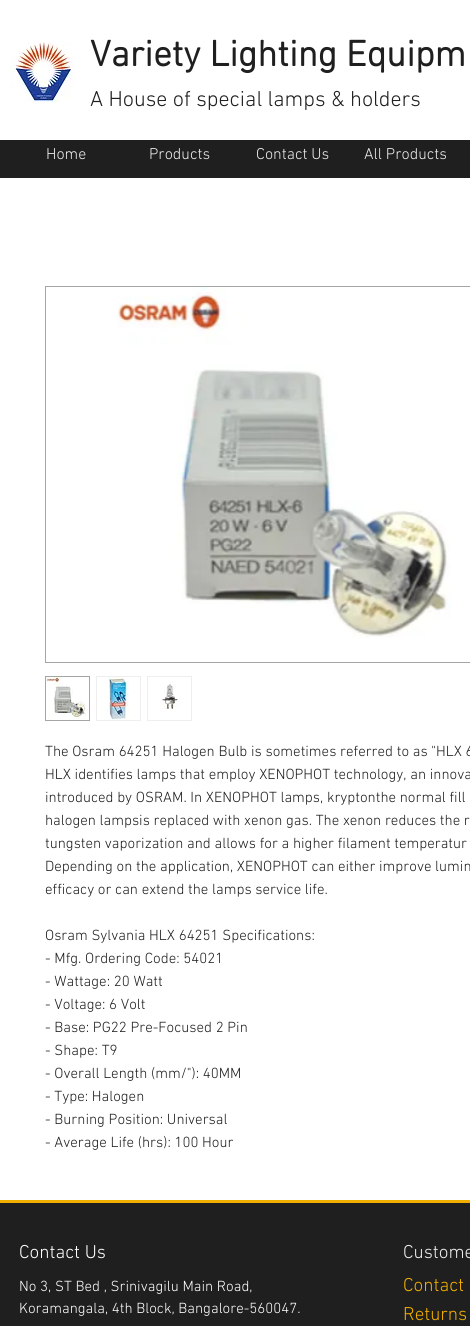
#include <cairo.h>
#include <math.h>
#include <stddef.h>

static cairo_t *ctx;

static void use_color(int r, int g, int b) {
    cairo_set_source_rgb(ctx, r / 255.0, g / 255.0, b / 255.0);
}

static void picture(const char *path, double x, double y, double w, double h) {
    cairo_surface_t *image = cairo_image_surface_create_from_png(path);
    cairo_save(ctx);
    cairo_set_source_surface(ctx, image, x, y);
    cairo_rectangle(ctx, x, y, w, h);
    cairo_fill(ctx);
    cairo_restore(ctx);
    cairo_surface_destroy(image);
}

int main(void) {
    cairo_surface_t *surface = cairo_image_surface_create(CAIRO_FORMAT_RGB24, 470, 1326);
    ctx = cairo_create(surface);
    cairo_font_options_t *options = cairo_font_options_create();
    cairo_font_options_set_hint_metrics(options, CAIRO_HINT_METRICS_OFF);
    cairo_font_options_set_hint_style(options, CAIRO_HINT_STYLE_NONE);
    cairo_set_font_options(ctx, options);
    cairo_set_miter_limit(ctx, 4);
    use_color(255, 255, 255);
    cairo_paint(ctx);
    picture("img1.png", 10, 41, 64, 62);
    cairo_select_font_face(ctx, "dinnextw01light", CAIRO_FONT_SLANT_NORMAL, CAIRO_FONT_WEIGHT_BOLD);
    cairo_set_font_size(ctx, 37);
    use_color(31, 31, 31);
    cairo_move_to(ctx, 90, 66);
    cairo_show_text(ctx, "Variety Lighting Equipm");
    cairo_select_font_face(ctx, "dinnextw01light Light", CAIRO_FONT_SLANT_NORMAL, CAIRO_FONT_WEIGHT_NORMAL);
    cairo_set_font_size(ctx, 22);
    cairo_move_to(ctx, 90, 106);
    cairo_show_text(ctx, "A House of special lamps & holders");
    cairo_rectangle(ctx, 0, 140, 470, 38);
    cairo_fill(ctx);
    cairo_set_font_size(ctx, 16);
    use_color(238, 238, 238);
    cairo_move_to(ctx, 46, 159);
    cairo_show_text(ctx, "Home");
    cairo_move_to(ctx, 149, 159);
    cairo_show_text(ctx, "Products");
    cairo_move_to(ctx, 256, 159);
    cairo_show_text(ctx, "Contact Us");
    cairo_move_to(ctx, 364, 159);
    cairo_show_text(ctx, "All Products");
    cairo_rectangle(ctx, 45.5, 286.5, 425, 376);
    use_color(165, 165, 165);
    cairo_set_line_width(ctx, 1);
    cairo_stroke(ctx);
    picture("img2.png", 117, 287, 334, 351);
    cairo_rectangle(ctx, 45.5, 676.5, 44, 44);
    cairo_stroke(ctx);
    picture("img3.png", 46, 677, 43, 43);
    use_color(238, 238, 238);
    cairo_rectangle(ctx, 96, 676, 45, 45);
    cairo_fill(ctx);
    picture("img4.png", 97, 677, 43, 43);
    cairo_rectangle(ctx, 147, 676, 45, 45);
    cairo_fill(ctx);
    picture("img5.png", 148, 677, 43, 43);
    cairo_set_font_size(ctx, 15);
    use_color(31, 31, 31);
    cairo_move_to(ctx, 45, 756);
    cairo_show_text(ctx, "The Osram 64251 Halogen Bulb is sometimes referred to as \"HLX 6");
    cairo_move_to(ctx, 45, 779);
    cairo_show_text(ctx, "HLX identifies lamps that employ XENOPHOT technology, an innova");
    cairo_move_to(ctx, 45, 802);
    cairo_show_text(ctx, "introduced by OSRAM. In XENOPHOT lamps, kryptonthe normal fill");
    cairo_move_to(ctx, 45, 825);
    cairo_show_text(ctx, "halogen lampsis replaced with xenon gas. The xenon reduces the r");
    cairo_move_to(ctx, 45, 848);
    cairo_show_text(ctx, "tungsten vaporization and allows for a higher filament temperatur");
    cairo_move_to(ctx, 45, 871);
    cairo_show_text(ctx, "Depending on the application, XENOPHOT can either improve lumin");
    cairo_move_to(ctx, 45, 894);
    cairo_show_text(ctx, "efficacy or can extend the lamps service life.");
    cairo_move_to(ctx, 45, 940);
    cairo_show_text(ctx, "Osram Sylvania HLX 64251 Specifications:");
    cairo_move_to(ctx, 45, 963);
    cairo_show_text(ctx, "- Mfg. Ordering Code: 54021");
    cairo_move_to(ctx, 45, 986);
    cairo_show_text(ctx, "- Wattage: 20 Watt");
    cairo_move_to(ctx, 45, 1009);
    cairo_show_text(ctx, "- Voltage: 6 Volt");
    cairo_move_to(ctx, 45, 1032);
    cairo_show_text(ctx, "- Base: PG22 Pre-Focused 2 Pin");
    cairo_move_to(ctx, 45, 1055);
    cairo_show_text(ctx, "- Shape: T9");
    cairo_move_to(ctx, 45, 1078);
    cairo_show_text(ctx, "- Overall Length (mm/\"): 40MM");
    cairo_move_to(ctx, 45, 1101);
    cairo_show_text(ctx, "- Type: Halogen");
    cairo_move_to(ctx, 45, 1124);
    cairo_show_text(ctx, "- Burning Position: Universal");
    cairo_move_to(ctx, 45, 1147);
    cairo_show_text(ctx, "- Average Life (hrs): 100 Hour");
    cairo_rectangle(ctx, 0, 1203, 470, 123);
    cairo_fill(ctx);
    use_color(240, 174, 0);
    cairo_rectangle(ctx, 0, 1200, 470, 3);
    cairo_fill(ctx);
    cairo_set_font_size(ctx, 19);
    use_color(255, 255, 255);
    cairo_move_to(ctx, 19, 1258);
    cairo_show_text(ctx, "Contact Us");
    cairo_set_font_size(ctx, 15);
    cairo_move_to(ctx, 19, 1291);
    cairo_show_text(ctx, "No 3, ST Bed , Srinivagilu Main Road,");
    cairo_move_to(ctx, 19, 1313);
    cairo_show_text(ctx, "Koramangala, 4th Block, Bangalore-560047.");
    cairo_set_font_size(ctx, 19);
    use_color(238, 238, 238);
    cairo_move_to(ctx, 403, 1258);
    cairo_show_text(ctx, "Custome");
    use_color(240, 174, 0);
    cairo_move_to(ctx, 403, 1291);
    cairo_show_text(ctx, "Contact");
    cairo_move_to(ctx, 403, 1320);
    cairo_show_text(ctx, "Returns");
    cairo_surface_write_to_png(surface, "result.png");
    cairo_font_options_destroy(options);
    cairo_destroy(ctx);
    cairo_surface_destroy(surface);
    return 0;
}
